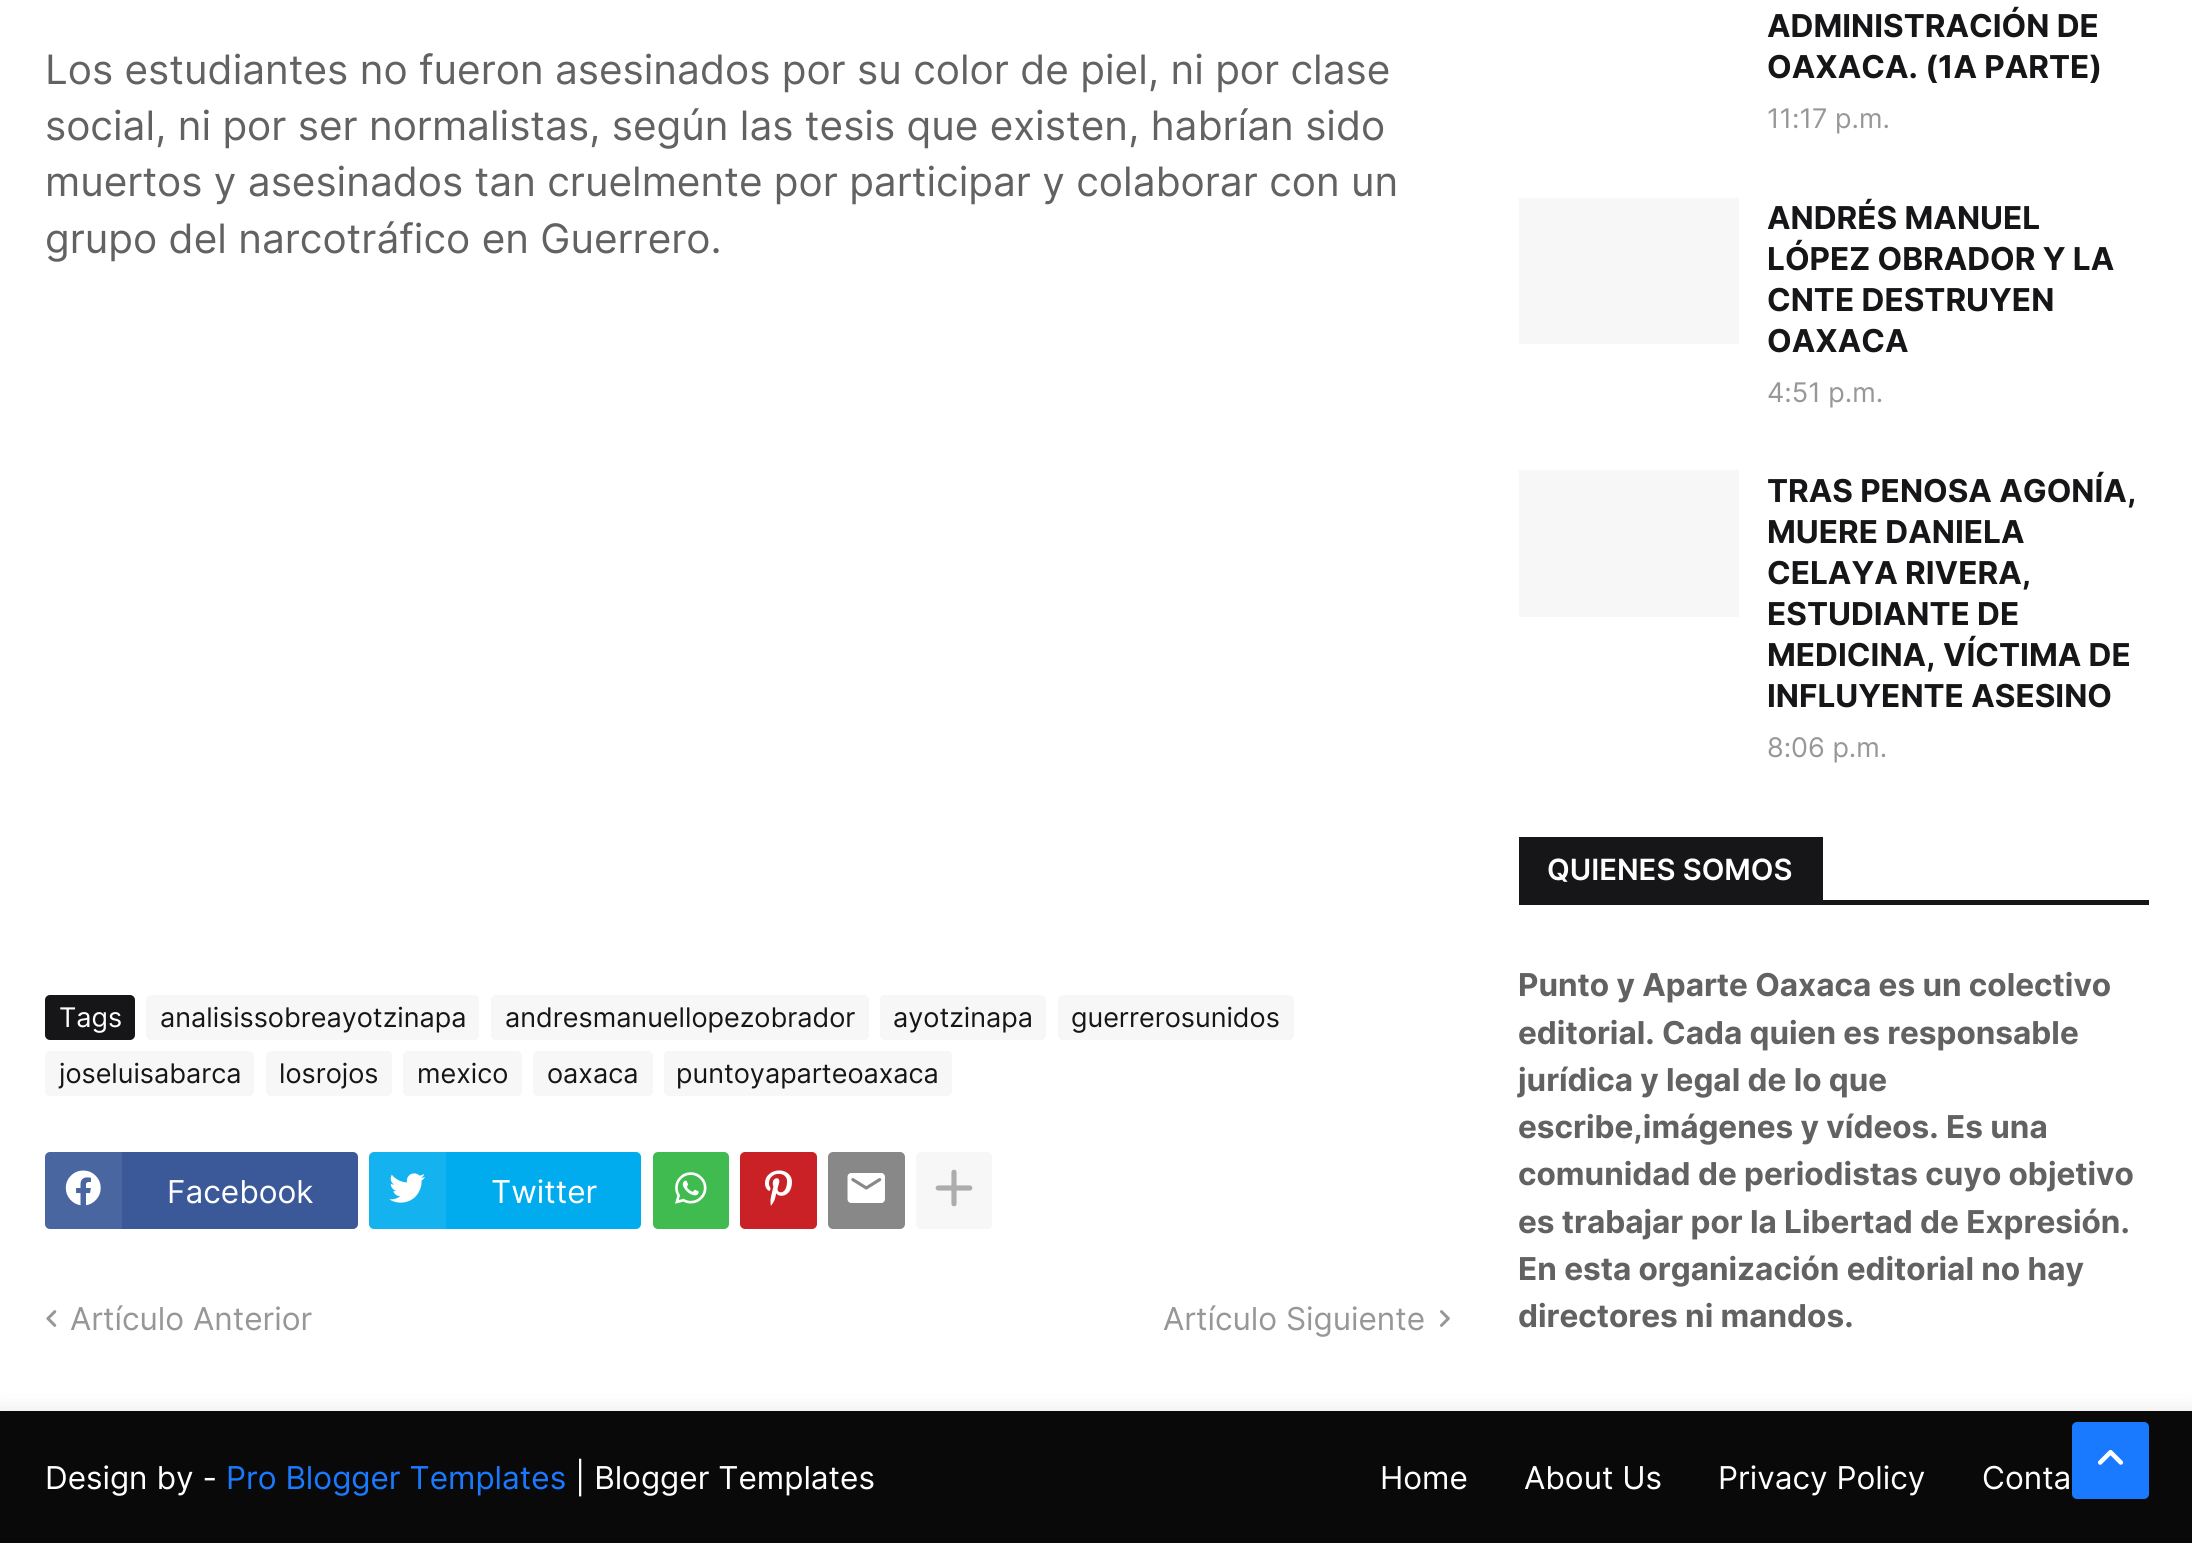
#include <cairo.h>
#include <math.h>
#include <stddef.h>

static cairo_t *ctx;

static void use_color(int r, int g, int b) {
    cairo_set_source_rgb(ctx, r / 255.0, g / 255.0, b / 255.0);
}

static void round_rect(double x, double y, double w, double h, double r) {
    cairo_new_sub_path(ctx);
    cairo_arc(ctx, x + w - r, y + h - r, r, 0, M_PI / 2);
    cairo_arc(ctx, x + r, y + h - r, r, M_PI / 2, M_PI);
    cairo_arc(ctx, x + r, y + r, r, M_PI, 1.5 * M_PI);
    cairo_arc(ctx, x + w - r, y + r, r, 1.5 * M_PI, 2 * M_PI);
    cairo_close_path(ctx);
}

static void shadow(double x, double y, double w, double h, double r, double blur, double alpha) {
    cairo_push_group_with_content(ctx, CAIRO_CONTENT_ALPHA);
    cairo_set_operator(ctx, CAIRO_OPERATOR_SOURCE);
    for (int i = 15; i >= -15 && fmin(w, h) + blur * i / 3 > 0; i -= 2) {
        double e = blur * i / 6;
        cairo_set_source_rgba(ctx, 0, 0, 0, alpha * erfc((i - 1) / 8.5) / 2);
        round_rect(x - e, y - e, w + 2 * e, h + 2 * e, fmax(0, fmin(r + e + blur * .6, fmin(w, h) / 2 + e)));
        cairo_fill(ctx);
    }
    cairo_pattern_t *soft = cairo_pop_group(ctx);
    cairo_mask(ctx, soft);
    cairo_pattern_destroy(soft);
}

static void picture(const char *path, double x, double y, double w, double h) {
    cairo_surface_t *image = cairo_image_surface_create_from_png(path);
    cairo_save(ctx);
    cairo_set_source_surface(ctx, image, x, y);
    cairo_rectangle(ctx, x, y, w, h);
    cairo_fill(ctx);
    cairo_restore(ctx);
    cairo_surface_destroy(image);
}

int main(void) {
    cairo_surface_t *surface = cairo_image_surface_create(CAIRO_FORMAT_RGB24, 2192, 1543);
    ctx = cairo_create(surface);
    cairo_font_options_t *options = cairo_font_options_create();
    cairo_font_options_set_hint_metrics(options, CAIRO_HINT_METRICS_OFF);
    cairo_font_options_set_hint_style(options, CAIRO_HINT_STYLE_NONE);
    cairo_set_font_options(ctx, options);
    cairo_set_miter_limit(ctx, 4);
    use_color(255, 255, 255);
    cairo_paint(ctx);
    cairo_select_font_face(ctx, "Inter", CAIRO_FONT_SLANT_NORMAL, CAIRO_FONT_WEIGHT_NORMAL);
    cairo_set_font_size(ctx, 40.5);
    use_color(98, 98, 98);
    cairo_move_to(ctx, 45, 84);
    cairo_show_text(ctx, "Los estudiantes no fueron asesinados por su color de piel, ni por clase");
    cairo_move_to(ctx, 45, 140);
    cairo_show_text(ctx, "social, ni por ser normalistas, según las tesis que existen, habrían sido");
    cairo_move_to(ctx, 45, 196);
    cairo_show_text(ctx, "muertos y asesinados tan cruelmente por participar y colaborar con un");
    cairo_move_to(ctx, 45, 253);
    cairo_show_text(ctx, "grupo del narcotráfico en Guerrero.");
    use_color(22, 22, 24);
    round_rect(45, 995, 90, 45, 5);
    cairo_fill(ctx);
    cairo_set_font_size(ctx, 27);
    use_color(255, 255, 255);
    cairo_move_to(ctx, 59, 1027);
    cairo_show_text(ctx, "Tags");
    use_color(247, 247, 247);
    round_rect(146, 995, 333, 45, 5);
    cairo_fill(ctx);
    use_color(22, 22, 24);
    cairo_move_to(ctx, 160, 1027);
    cairo_show_text(ctx, "analisissobreayotzinapa");
    use_color(247, 247, 247);
    round_rect(491, 995, 378, 45, 5);
    cairo_fill(ctx);
    use_color(22, 22, 24);
    cairo_move_to(ctx, 505, 1027);
    cairo_show_text(ctx, "andresmanuellopezobrador");
    use_color(247, 247, 247);
    round_rect(880, 995, 166, 45, 5);
    cairo_fill(ctx);
    use_color(22, 22, 24);
    cairo_move_to(ctx, 893, 1027);
    cairo_show_text(ctx, "ayotzinapa");
    use_color(247, 247, 247);
    round_rect(1058, 995, 236, 45, 5);
    cairo_fill(ctx);
    use_color(22, 22, 24);
    cairo_move_to(ctx, 1071, 1027);
    cairo_show_text(ctx, "guerrerosunidos");
    use_color(247, 247, 247);
    round_rect(45, 1051, 209, 45, 5);
    cairo_fill(ctx);
    use_color(22, 22, 24);
    cairo_move_to(ctx, 59, 1083);
    cairo_show_text(ctx, "joseluisabarca");
    use_color(247, 247, 247);
    round_rect(266, 1051, 126, 45, 5);
    cairo_fill(ctx);
    use_color(22, 22, 24);
    cairo_move_to(ctx, 279, 1083);
    cairo_show_text(ctx, "losrojos");
    use_color(247, 247, 247);
    round_rect(403, 1051, 119, 45, 5);
    cairo_fill(ctx);
    use_color(22, 22, 24);
    cairo_move_to(ctx, 417, 1083);
    cairo_show_text(ctx, "mexico");
    use_color(247, 247, 247);
    round_rect(533, 1051, 120, 45, 5);
    cairo_fill(ctx);
    use_color(22, 22, 24);
    cairo_move_to(ctx, 547, 1083);
    cairo_show_text(ctx, "oaxaca");
    use_color(247, 247, 247);
    round_rect(664, 1051, 288, 45, 5);
    cairo_fill(ctx);
    use_color(22, 22, 24);
    cairo_move_to(ctx, 676, 1083);
    cairo_show_text(ctx, "puntoyaparteoaxaca");
    use_color(59, 89, 153);
    round_rect(45, 1152, 313, 77, 5);
    cairo_fill(ctx);
    cairo_set_source_rgba(ctx, 1, 1, 1, 0.08);
    cairo_new_path(ctx);
    cairo_move_to(ctx, 50, 1152);
    cairo_line_to(ctx, 122, 1152);
    cairo_line_to(ctx, 122, 1229);
    cairo_line_to(ctx, 50, 1229);
    cairo_curve_to(ctx, 47, 1229, 45, 1227, 45, 1224);
    cairo_line_to(ctx, 45, 1157);
    cairo_curve_to(ctx, 45, 1154, 47, 1152, 50, 1152);
    cairo_close_path(ctx);
    cairo_fill(ctx);
    picture("img1.png", 65, 1170, 36, 36);
    cairo_set_font_size(ctx, 31.5);
    use_color(255, 255, 255);
    cairo_move_to(ctx, 167, 1203);
    cairo_show_text(ctx, "Facebook");
    use_color(0, 172, 238);
    round_rect(369, 1152, 272, 77, 5);
    cairo_fill(ctx);
    cairo_set_source_rgba(ctx, 1, 1, 1, 0.08);
    cairo_new_path(ctx);
    cairo_move_to(ctx, 374, 1152);
    cairo_line_to(ctx, 446, 1152);
    cairo_line_to(ctx, 446, 1229);
    cairo_line_to(ctx, 374, 1229);
    cairo_curve_to(ctx, 371, 1229, 369, 1227, 369, 1224);
    cairo_line_to(ctx, 369, 1157);
    cairo_curve_to(ctx, 369, 1154, 371, 1152, 374, 1152);
    cairo_close_path(ctx);
    cairo_fill(ctx);
    picture("img2.png", 389, 1173, 36, 30);
    use_color(255, 255, 255);
    cairo_move_to(ctx, 491, 1203);
    cairo_show_text(ctx, "Twitter");
    use_color(63, 187, 80);
    round_rect(653, 1152, 76, 77, 5);
    cairo_fill(ctx);
    picture("img3.png", 675, 1172, 32, 32);
    use_color(202, 33, 39);
    round_rect(740, 1152, 77, 77, 5);
    cairo_fill(ctx);
    picture("img4.png", 765, 1170, 27, 36);
    use_color(136, 136, 136);
    round_rect(828, 1152, 77, 77, 5);
    cairo_fill(ctx);
    picture("img5.png", 847, 1173, 38, 30);
    use_color(247, 247, 247);
    round_rect(916, 1152, 76, 77, 5);
    cairo_fill(ctx);
    picture("img6.png", 935, 1169, 38, 38);
    picture("img7.png", 46, 1310, 11, 17);
    use_color(151, 151, 151);
    cairo_move_to(ctx, 70, 1330);
    cairo_show_text(ctx, "Artículo Anterior");
    cairo_move_to(ctx, 1163, 1330);
    cairo_show_text(ctx, "Artículo Siguiente");
    picture("img8.png", 1440, 1310, 10, 17);
    cairo_select_font_face(ctx, "Inter", CAIRO_FONT_SLANT_NORMAL, CAIRO_FONT_WEIGHT_BOLD);
    use_color(22, 22, 24);
    cairo_move_to(ctx, 1767, 37);
    cairo_show_text(ctx, "ADMINISTRACIÓN DE");
    cairo_move_to(ctx, 1767, 78);
    cairo_show_text(ctx, "OAXACA. (1A PARTE)");
    cairo_select_font_face(ctx, "Inter", CAIRO_FONT_SLANT_NORMAL, CAIRO_FONT_WEIGHT_NORMAL);
    cairo_set_font_size(ctx, 27);
    use_color(151, 151, 151);
    cairo_move_to(ctx, 1767, 128);
    cairo_show_text(ctx, "11:17 p.m.");
    use_color(247, 247, 247);
    cairo_rectangle(ctx, 1519, 198, 220, 146);
    cairo_fill(ctx);
    cairo_select_font_face(ctx, "Inter", CAIRO_FONT_SLANT_NORMAL, CAIRO_FONT_WEIGHT_BOLD);
    cairo_set_font_size(ctx, 31.5);
    use_color(22, 22, 24);
    cairo_move_to(ctx, 1767, 229);
    cairo_show_text(ctx, "ANDRÉS MANUEL");
    cairo_move_to(ctx, 1767, 270);
    cairo_show_text(ctx, "LÓPEZ OBRADOR Y LA");
    cairo_move_to(ctx, 1767, 311);
    cairo_show_text(ctx, "CNTE DESTRUYEN");
    cairo_move_to(ctx, 1767, 352);
    cairo_show_text(ctx, "OAXACA");
    cairo_select_font_face(ctx, "Inter", CAIRO_FONT_SLANT_NORMAL, CAIRO_FONT_WEIGHT_NORMAL);
    cairo_set_font_size(ctx, 27);
    use_color(151, 151, 151);
    cairo_move_to(ctx, 1767, 402);
    cairo_show_text(ctx, "4:51 p.m.");
    use_color(247, 247, 247);
    cairo_rectangle(ctx, 1519, 470, 220, 147);
    cairo_fill(ctx);
    cairo_select_font_face(ctx, "Inter", CAIRO_FONT_SLANT_NORMAL, CAIRO_FONT_WEIGHT_BOLD);
    cairo_set_font_size(ctx, 31.5);
    use_color(22, 22, 24);
    cairo_move_to(ctx, 1767, 502);
    cairo_show_text(ctx, "TRAS PENOSA AGONÍA,");
    cairo_move_to(ctx, 1767, 543);
    cairo_show_text(ctx, "MUERE DANIELA");
    cairo_move_to(ctx, 1767, 584);
    cairo_show_text(ctx, "CELAYA RIVERA,");
    cairo_move_to(ctx, 1767, 625);
    cairo_show_text(ctx, "ESTUDIANTE DE");
    cairo_move_to(ctx, 1767, 666);
    cairo_show_text(ctx, "MEDICINA, VÍCTIMA DE");
    cairo_move_to(ctx, 1767, 707);
    cairo_show_text(ctx, "INFLUYENTE ASESINO");
    cairo_select_font_face(ctx, "Inter", CAIRO_FONT_SLANT_NORMAL, CAIRO_FONT_WEIGHT_NORMAL);
    cairo_set_font_size(ctx, 27);
    use_color(151, 151, 151);
    cairo_move_to(ctx, 1767, 757);
    cairo_show_text(ctx, "8:06 p.m.");
    use_color(22, 22, 24);
    cairo_rectangle(ctx, 1823, 900, 326, 5);
    cairo_fill(ctx);
    cairo_rectangle(ctx, 1519, 837, 304, 68);
    cairo_fill(ctx);
    cairo_select_font_face(ctx, "Inter SemiBold", CAIRO_FONT_SLANT_NORMAL, CAIRO_FONT_WEIGHT_NORMAL);
    cairo_set_font_size(ctx, 29.25);
    use_color(255, 255, 255);
    cairo_move_to(ctx, 1547, 880);
    cairo_show_text(ctx, "QUIENES SOMOS");
    cairo_select_font_face(ctx, "Inter", CAIRO_FONT_SLANT_NORMAL, CAIRO_FONT_WEIGHT_BOLD);
    cairo_set_font_size(ctx, 31.5);
    use_color(98, 98, 98);
    cairo_move_to(ctx, 1518, 996);
    cairo_show_text(ctx, "Punto y Aparte Oaxaca es un colectivo");
    cairo_move_to(ctx, 1518, 1044);
    cairo_show_text(ctx, "editorial. Cada quien es responsable");
    cairo_move_to(ctx, 1518, 1091);
    cairo_show_text(ctx, "jurídica y legal de lo que");
    cairo_move_to(ctx, 1518, 1138);
    cairo_show_text(ctx, "escribe,imágenes y vídeos. Es una");
    cairo_move_to(ctx, 1518, 1185);
    cairo_show_text(ctx, "comunidad de periodistas cuyo objetivo");
    cairo_move_to(ctx, 1518, 1233);
    cairo_show_text(ctx, "es trabajar por la Libertad de Expresión.");
    cairo_move_to(ctx, 1518, 1280);
    cairo_show_text(ctx, "En esta organización editorial no hay");
    cairo_move_to(ctx, 1518, 1327);
    cairo_show_text(ctx, "directores ni mandos.");
    use_color(0, 0, 0);
    shadow(0, 1411, 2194, 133, 0, 11, 0.1);
    use_color(9, 9, 10);
    cairo_rectangle(ctx, 0, 1411, 2192, 132);
    cairo_fill(ctx);
    cairo_select_font_face(ctx, "Inter", CAIRO_FONT_SLANT_NORMAL, CAIRO_FONT_WEIGHT_NORMAL);
    use_color(255, 255, 255);
    cairo_move_to(ctx, 45, 1489);
    cairo_show_text(ctx, "Design by -");
    use_color(26, 122, 255);
    cairo_move_to(ctx, 226, 1489);
    cairo_show_text(ctx, "Pro Blogger Templates");
    use_color(255, 255, 255);
    cairo_move_to(ctx, 575, 1489);
    cairo_show_text(ctx, "| Blogger Templates");
    cairo_move_to(ctx, 1380, 1489);
    cairo_show_text(ctx, "Home");
    cairo_move_to(ctx, 1524, 1489);
    cairo_show_text(ctx, "About Us");
    cairo_move_to(ctx, 1718, 1489);
    cairo_show_text(ctx, "Privacy Policy");
    cairo_move_to(ctx, 1982, 1489);
    cairo_show_text(ctx, "Conta");
    use_color(26, 122, 255);
    round_rect(2072, 1422, 77, 77, 5);
    cairo_fill(ctx);
    picture("img9.png", 2098, 1449, 25, 16);
    cairo_surface_write_to_png(surface, "result.png");
    cairo_font_options_destroy(options);
    cairo_destroy(ctx);
    cairo_surface_destroy(surface);
    return 0;
}
